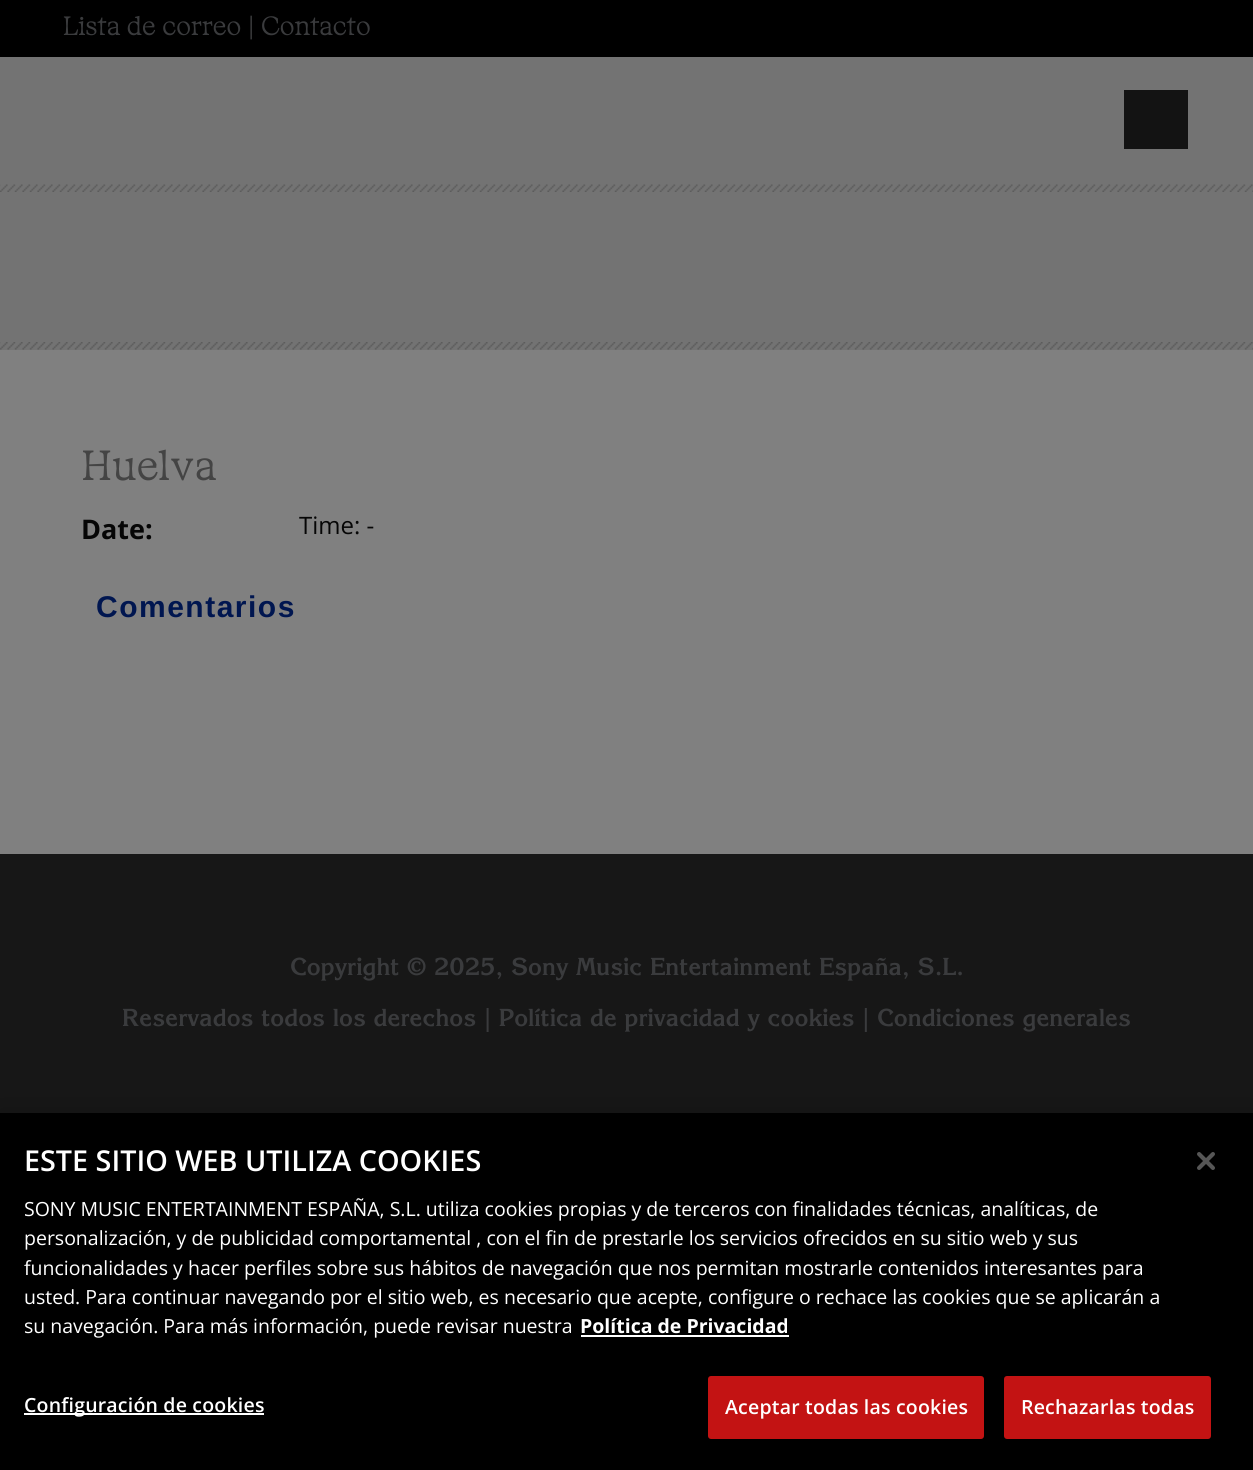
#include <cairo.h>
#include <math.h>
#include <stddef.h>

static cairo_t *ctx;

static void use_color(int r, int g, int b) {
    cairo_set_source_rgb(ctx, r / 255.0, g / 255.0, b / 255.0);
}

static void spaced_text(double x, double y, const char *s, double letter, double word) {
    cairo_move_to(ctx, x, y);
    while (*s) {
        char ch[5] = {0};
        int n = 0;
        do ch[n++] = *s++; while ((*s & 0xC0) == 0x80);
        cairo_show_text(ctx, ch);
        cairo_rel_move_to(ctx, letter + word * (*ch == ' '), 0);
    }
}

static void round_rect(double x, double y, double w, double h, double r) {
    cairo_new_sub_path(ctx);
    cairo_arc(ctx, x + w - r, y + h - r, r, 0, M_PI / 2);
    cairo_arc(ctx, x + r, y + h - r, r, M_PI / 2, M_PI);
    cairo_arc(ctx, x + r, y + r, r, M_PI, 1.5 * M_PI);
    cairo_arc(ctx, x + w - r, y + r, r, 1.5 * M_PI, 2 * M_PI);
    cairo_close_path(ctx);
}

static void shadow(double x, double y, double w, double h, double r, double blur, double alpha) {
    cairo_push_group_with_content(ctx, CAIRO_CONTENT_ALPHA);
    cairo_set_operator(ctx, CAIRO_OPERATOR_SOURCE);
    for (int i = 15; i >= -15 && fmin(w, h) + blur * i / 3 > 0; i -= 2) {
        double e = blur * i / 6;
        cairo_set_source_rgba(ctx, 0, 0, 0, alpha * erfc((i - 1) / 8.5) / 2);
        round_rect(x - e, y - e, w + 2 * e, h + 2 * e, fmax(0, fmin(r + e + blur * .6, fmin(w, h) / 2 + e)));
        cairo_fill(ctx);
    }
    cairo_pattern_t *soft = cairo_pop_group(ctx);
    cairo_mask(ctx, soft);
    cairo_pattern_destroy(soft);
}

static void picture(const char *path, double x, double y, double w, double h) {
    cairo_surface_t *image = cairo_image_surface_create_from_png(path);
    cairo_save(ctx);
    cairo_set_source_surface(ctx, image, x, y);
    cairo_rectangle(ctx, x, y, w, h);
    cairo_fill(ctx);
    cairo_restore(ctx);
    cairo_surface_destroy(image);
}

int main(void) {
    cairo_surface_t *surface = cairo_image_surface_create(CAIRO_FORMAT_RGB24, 1253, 1470);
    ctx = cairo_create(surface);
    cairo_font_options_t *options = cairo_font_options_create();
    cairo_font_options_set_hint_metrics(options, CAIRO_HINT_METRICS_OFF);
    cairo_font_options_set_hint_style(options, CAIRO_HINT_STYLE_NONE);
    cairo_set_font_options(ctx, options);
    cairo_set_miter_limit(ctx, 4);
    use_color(128, 128, 128);
    cairo_paint(ctx);
    use_color(23, 23, 23);
    cairo_rectangle(ctx, 0, 854, 1253, 259);
    cairo_fill(ctx);
    use_color(0, 0, 0);
    cairo_rectangle(ctx, 0, 0, 1253, 57);
    cairo_fill(ctx);
    cairo_select_font_face(ctx, "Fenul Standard", CAIRO_FONT_SLANT_NORMAL, CAIRO_FONT_WEIGHT_BOLD);
    cairo_set_font_size(ctx, 25.5);
    use_color(58, 59, 61);
    spaced_text(63, 35, "Lista de correo | Contacto", 0.75, 0);
    cairo_select_font_face(ctx, "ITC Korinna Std", CAIRO_FONT_SLANT_NORMAL, CAIRO_FONT_WEIGHT_BOLD);
    cairo_set_font_size(ctx, 24);
    cairo_move_to(ctx, 290, 975);
    cairo_show_text(ctx, "Copyright © 2025, Sony Music Entertainment España, S.L.");
    cairo_move_to(ctx, 122, 1026);
    cairo_show_text(ctx, "Reservados todos los derechos | Política de privacidad y cookies | Condiciones generales");
    use_color(115, 115, 115);
    cairo_rectangle(ctx, 0, 57, 1253, 293);
    cairo_fill(ctx);
    picture("img1.png", 0, 342, 1253, 8);
    use_color(19, 19, 19);
    cairo_rectangle(ctx, 1124, 90, 64, 59);
    cairo_fill(ctx);
    picture("img2.png", 0, 184, 1253, 8);
    cairo_select_font_face(ctx, "Fenul Standard", CAIRO_FONT_SLANT_NORMAL, CAIRO_FONT_WEIGHT_BOLD);
    cairo_set_font_size(ctx, 40.5);
    use_color(68, 68, 68);
    spaced_text(81, 480, "Huelva", 1.5, 0);
    cairo_select_font_face(ctx, "Open Sans", CAIRO_FONT_SLANT_NORMAL, CAIRO_FONT_WEIGHT_BOLD);
    cairo_set_font_size(ctx, 27);
    use_color(6, 6, 6);
    cairo_move_to(ctx, 81, 539);
    cairo_show_text(ctx, "Date:");
    cairo_select_font_face(ctx, "Open Sans", CAIRO_FONT_SLANT_NORMAL, CAIRO_FONT_WEIGHT_NORMAL);
    cairo_set_font_size(ctx, 24);
    cairo_move_to(ctx, 299, 534);
    cairo_show_text(ctx, "Time: -");
    cairo_select_font_face(ctx, "Liberation Sans", CAIRO_FONT_SLANT_NORMAL, CAIRO_FONT_WEIGHT_BOLD);
    cairo_set_font_size(ctx, 30);
    use_color(0, 22, 80);
    spaced_text(96, 617, "Comentarios", 1.5, 0);
    use_color(0, 0, 0);
    shadow(0, 1113, 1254, 357, 0, 13.5, 0.2);
    use_color(0, 0, 0);
    cairo_rectangle(ctx, 0, 1113, 1253, 357);
    cairo_fill(ctx);
    cairo_select_font_face(ctx, "Open Sans SemiBold", CAIRO_FONT_SLANT_NORMAL, CAIRO_FONT_WEIGHT_NORMAL);
    cairo_set_font_size(ctx, 28.75);
    use_color(255, 255, 255);
    cairo_move_to(ctx, 24, 1171);
    cairo_show_text(ctx, "ESTE SITIO WEB UTILIZA COOKIES");
    cairo_select_font_face(ctx, "Open Sans", CAIRO_FONT_SLANT_NORMAL, CAIRO_FONT_WEIGHT_NORMAL);
    cairo_set_font_size(ctx, 19.5);
    cairo_move_to(ctx, 24, 1216);
    cairo_show_text(ctx, "SONY MUSIC ENTERTAINMENT ESPAÑA, S.L. utiliza cookies propias y de terceros con finalidades técnicas, analíticas, de");
    cairo_move_to(ctx, 24, 1245);
    cairo_show_text(ctx, "personalización, y de publicidad comportamental , con el fin de prestarle los servicios ofrecidos en su sitio web y sus");
    cairo_move_to(ctx, 24, 1275);
    cairo_show_text(ctx, "funcionalidades y hacer perfiles sobre sus hábitos de navegación que nos permitan mostrarle contenidos interesantes para");
    cairo_move_to(ctx, 24, 1304);
    cairo_show_text(ctx, "usted. Para continuar navegando por el sitio web, es necesario que acepte, configure o rechace las cookies que se aplicarán a");
    cairo_move_to(ctx, 24, 1333);
    cairo_show_text(ctx, "su navegación. Para más información, puede revisar nuestra");
    cairo_select_font_face(ctx, "Open Sans", CAIRO_FONT_SLANT_NORMAL, CAIRO_FONT_WEIGHT_BOLD);
    cairo_move_to(ctx, 580, 1333);
    cairo_show_text(ctx, "Política de Privacidad");
    cairo_rectangle(ctx, 581, 1335, 208, 2);
    cairo_fill(ctx);
    cairo_rectangle(ctx, 24, 1413, 240, 2);
    cairo_fill(ctx);
    cairo_select_font_face(ctx, "Open Sans SemiBold", CAIRO_FONT_SLANT_NORMAL, CAIRO_FONT_WEIGHT_NORMAL);
    spaced_text(24, 1412, "Configuración de cookies", 0.2, 0);
    use_color(195, 19, 19);
    round_rect(709, 1377, 274, 61, 2);
    cairo_fill_preserve(ctx);
    cairo_stroke(ctx);
    use_color(255, 255, 255);
    spaced_text(725, 1414, "Aceptar todas las cookies", 0.2, 0);
    use_color(195, 19, 19);
    round_rect(1005, 1377, 205, 61, 2);
    cairo_fill_preserve(ctx);
    cairo_stroke(ctx);
    use_color(255, 255, 255);
    spaced_text(1021, 1414, "Rechazarlas todas", 0.2, 0);
    picture("img3.png", 1197, 1152, 18, 18);
    cairo_surface_write_to_png(surface, "result.png");
    cairo_font_options_destroy(options);
    cairo_destroy(ctx);
    cairo_surface_destroy(surface);
    return 0;
}
